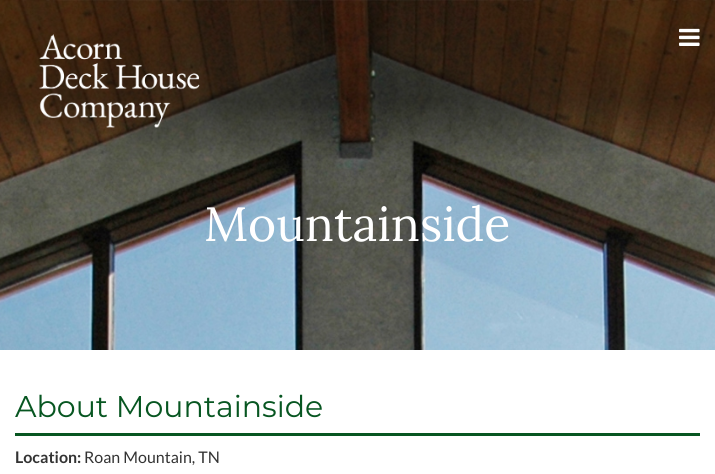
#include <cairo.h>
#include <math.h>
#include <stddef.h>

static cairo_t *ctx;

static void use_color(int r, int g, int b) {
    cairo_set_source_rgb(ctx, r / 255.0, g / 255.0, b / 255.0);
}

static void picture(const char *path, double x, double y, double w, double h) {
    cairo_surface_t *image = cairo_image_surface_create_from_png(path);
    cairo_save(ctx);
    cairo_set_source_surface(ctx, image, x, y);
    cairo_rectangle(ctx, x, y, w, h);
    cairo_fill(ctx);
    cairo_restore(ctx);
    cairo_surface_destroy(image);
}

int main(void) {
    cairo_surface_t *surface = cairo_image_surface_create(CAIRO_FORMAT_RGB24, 715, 474);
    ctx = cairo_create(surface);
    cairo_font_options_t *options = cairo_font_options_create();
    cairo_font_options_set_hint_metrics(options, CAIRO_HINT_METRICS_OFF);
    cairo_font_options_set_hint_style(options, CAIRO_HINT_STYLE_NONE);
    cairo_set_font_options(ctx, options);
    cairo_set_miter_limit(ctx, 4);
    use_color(255, 255, 255);
    cairo_paint(ctx);
    picture("img3.png", 0, 0, 715, 350);
    picture("img1.png", 39, 34, 161, 94);
    picture("img2.png", 679, 28, 21, 18);
    cairo_select_font_face(ctx, "Lora", CAIRO_FONT_SLANT_NORMAL, CAIRO_FONT_WEIGHT_NORMAL);
    cairo_set_font_size(ctx, 48);
    use_color(255, 255, 255);
    cairo_move_to(ctx, 204, 241);
    cairo_show_text(ctx, "Mountainside");
    cairo_select_font_face(ctx, "Montserrat", CAIRO_FONT_SLANT_NORMAL, CAIRO_FONT_WEIGHT_NORMAL);
    cairo_set_font_size(ctx, 30);
    use_color(7, 86, 33);
    cairo_move_to(ctx, 15, 417);
    cairo_show_text(ctx, "About Mountainside");
    cairo_rectangle(ctx, 15, 433, 685, 3);
    cairo_fill(ctx);
    cairo_select_font_face(ctx, "Lato", CAIRO_FONT_SLANT_NORMAL, CAIRO_FONT_WEIGHT_BOLD);
    cairo_set_font_size(ctx, 16);
    use_color(51, 51, 51);
    cairo_move_to(ctx, 15, 463);
    cairo_show_text(ctx, "Location:");
    cairo_select_font_face(ctx, "Lato", CAIRO_FONT_SLANT_NORMAL, CAIRO_FONT_WEIGHT_NORMAL);
    cairo_move_to(ctx, 84, 463);
    cairo_show_text(ctx, "Roan Mountain, TN");
    cairo_surface_write_to_png(surface, "result.png");
    cairo_font_options_destroy(options);
    cairo_destroy(ctx);
    cairo_surface_destroy(surface);
    return 0;
}
